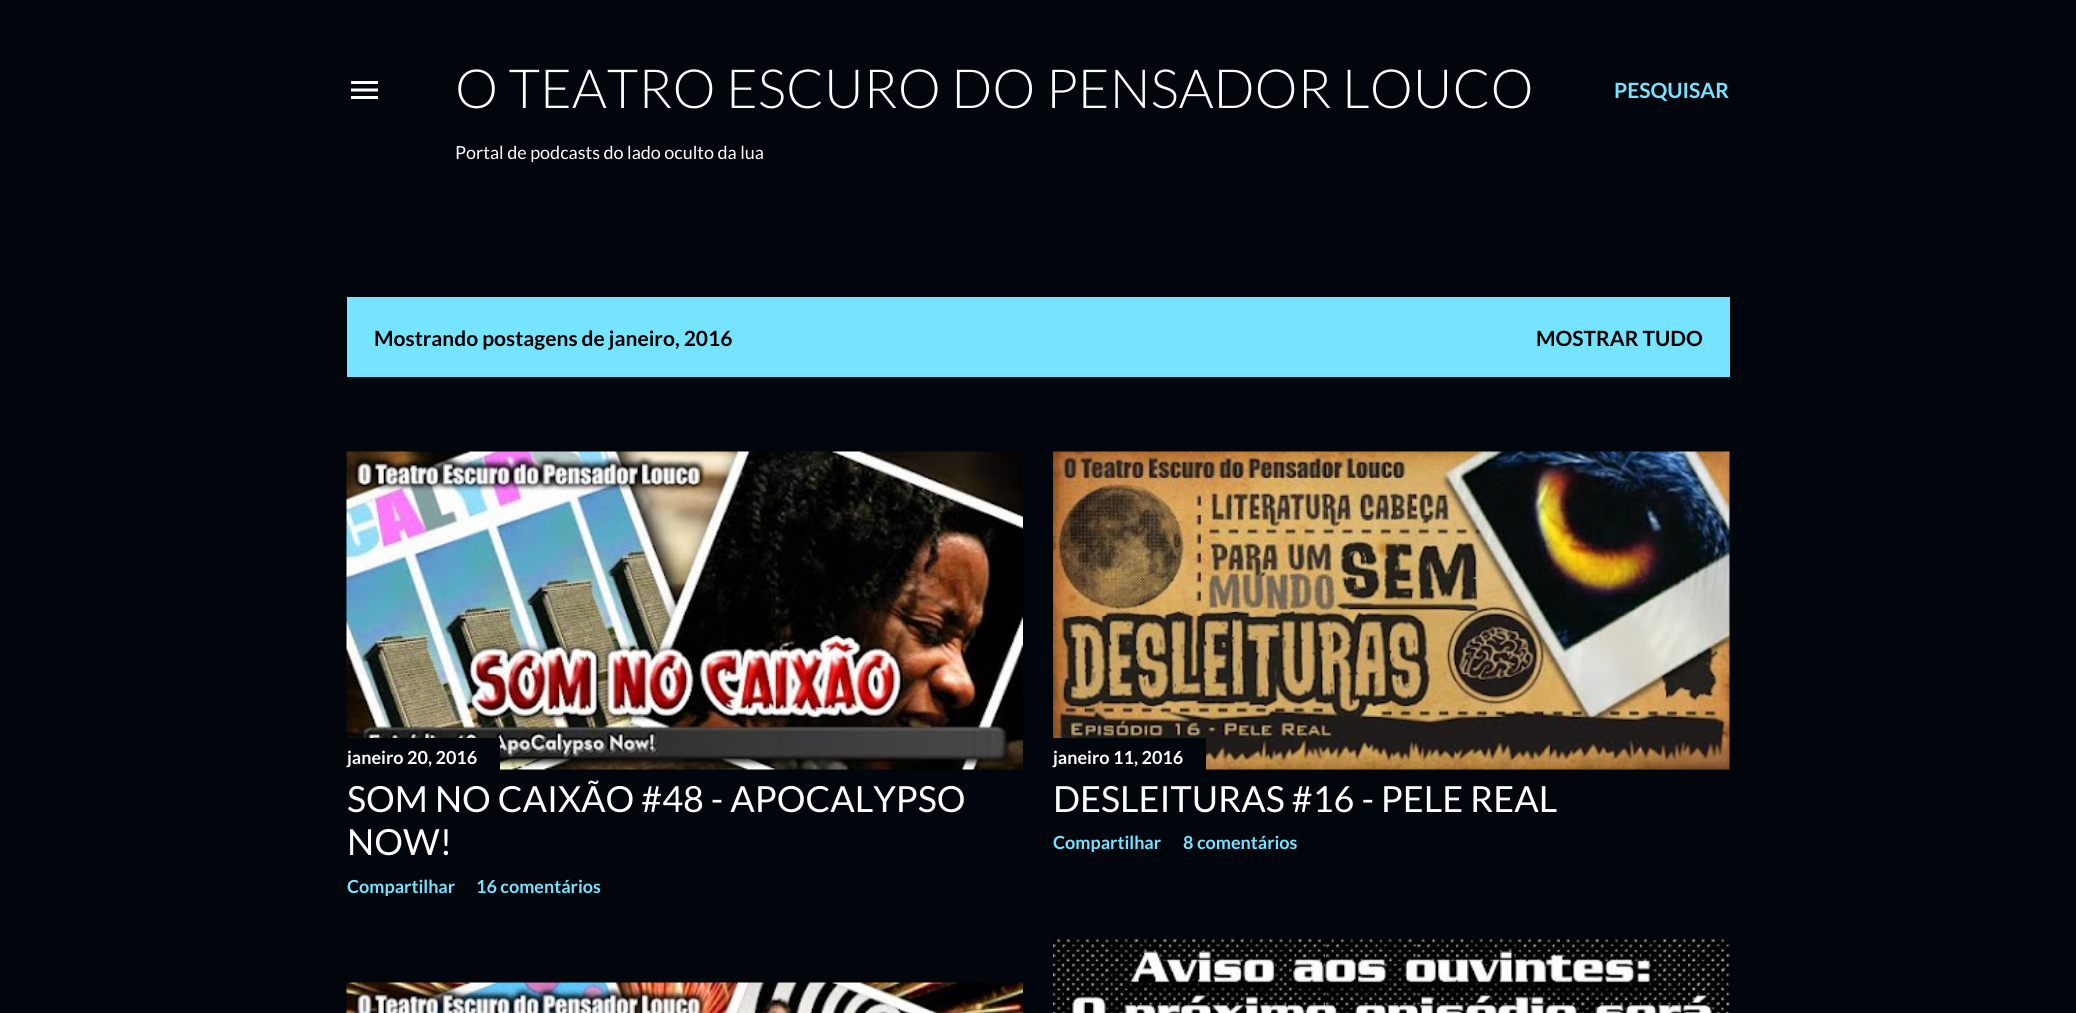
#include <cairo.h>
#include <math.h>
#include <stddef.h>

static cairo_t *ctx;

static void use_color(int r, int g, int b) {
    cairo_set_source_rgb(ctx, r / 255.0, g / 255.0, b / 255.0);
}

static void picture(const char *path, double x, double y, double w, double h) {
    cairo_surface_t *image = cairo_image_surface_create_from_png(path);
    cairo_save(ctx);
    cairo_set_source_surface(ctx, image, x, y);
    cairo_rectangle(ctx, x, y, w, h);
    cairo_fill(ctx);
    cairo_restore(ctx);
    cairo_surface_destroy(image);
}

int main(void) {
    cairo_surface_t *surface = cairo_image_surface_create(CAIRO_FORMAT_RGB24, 2076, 1013);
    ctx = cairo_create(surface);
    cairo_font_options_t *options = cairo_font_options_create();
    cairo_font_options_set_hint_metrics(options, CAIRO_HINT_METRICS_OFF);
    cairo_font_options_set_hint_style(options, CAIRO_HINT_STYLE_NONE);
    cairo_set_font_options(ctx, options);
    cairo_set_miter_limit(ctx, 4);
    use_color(1, 5, 12);
    cairo_paint(ctx);
    picture("img1.png", 351, 81, 27, 18);
    cairo_select_font_face(ctx, "Lato Light", CAIRO_FONT_SLANT_NORMAL, CAIRO_FONT_WEIGHT_NORMAL);
    cairo_set_font_size(ctx, 54);
    use_color(255, 255, 255);
    cairo_move_to(ctx, 455, 108);
    cairo_show_text(ctx, "O TEATRO ESCURO DO PENSADOR LOUCO");
    cairo_select_font_face(ctx, "Lato", CAIRO_FONT_SLANT_NORMAL, CAIRO_FONT_WEIGHT_NORMAL);
    cairo_set_font_size(ctx, 18);
    cairo_move_to(ctx, 455, 159);
    cairo_show_text(ctx, "Portal de podcasts do lado oculto da lua");
    cairo_select_font_face(ctx, "Lato", CAIRO_FONT_SLANT_NORMAL, CAIRO_FONT_WEIGHT_BOLD);
    cairo_set_font_size(ctx, 21);
    use_color(119, 228, 255);
    cairo_move_to(ctx, 1614, 98);
    cairo_show_text(ctx, "PESQUISAR");
    cairo_rectangle(ctx, 347, 297, 1383, 80);
    cairo_fill(ctx);
    use_color(0, 0, 0);
    cairo_move_to(ctx, 374, 346);
    cairo_show_text(ctx, "Mostrando postagens de janeiro, 2016");
    cairo_move_to(ctx, 1536, 346);
    cairo_show_text(ctx, "MOSTRAR TUDO");
    picture("img2.png", 346, 451, 677, 319);
    use_color(1, 5, 12);
    cairo_rectangle(ctx, 347, 738, 153, 32);
    cairo_fill(ctx);
    cairo_set_font_size(ctx, 18);
    use_color(255, 255, 255);
    cairo_move_to(ctx, 347, 764);
    cairo_show_text(ctx, "janeiro 20, 2016");
    cairo_select_font_face(ctx, "Lato", CAIRO_FONT_SLANT_NORMAL, CAIRO_FONT_WEIGHT_NORMAL);
    cairo_set_font_size(ctx, 36);
    cairo_move_to(ctx, 347, 812);
    cairo_show_text(ctx, "SOM NO CAIXÃO #48 - APOCALYPSO");
    cairo_move_to(ctx, 347, 855);
    cairo_show_text(ctx, "NOW!");
    cairo_select_font_face(ctx, "Lato", CAIRO_FONT_SLANT_NORMAL, CAIRO_FONT_WEIGHT_BOLD);
    cairo_set_font_size(ctx, 18);
    use_color(119, 228, 255);
    cairo_move_to(ctx, 347, 893);
    cairo_show_text(ctx, "Compartilhar");
    cairo_move_to(ctx, 476, 893);
    cairo_show_text(ctx, "16 comentários");
    picture("img3.png", 1053, 451, 677, 319);
    use_color(1, 5, 12);
    cairo_rectangle(ctx, 1053, 738, 153, 32);
    cairo_fill(ctx);
    use_color(255, 255, 255);
    cairo_move_to(ctx, 1053, 764);
    cairo_show_text(ctx, "janeiro 11, 2016");
    cairo_select_font_face(ctx, "Lato", CAIRO_FONT_SLANT_NORMAL, CAIRO_FONT_WEIGHT_NORMAL);
    cairo_set_font_size(ctx, 36);
    cairo_move_to(ctx, 1053, 812);
    cairo_show_text(ctx, "DESLEITURAS #16 - PELE REAL");
    cairo_select_font_face(ctx, "Lato", CAIRO_FONT_SLANT_NORMAL, CAIRO_FONT_WEIGHT_BOLD);
    cairo_set_font_size(ctx, 18);
    use_color(119, 228, 255);
    cairo_move_to(ctx, 1053, 849);
    cairo_show_text(ctx, "Compartilhar");
    cairo_move_to(ctx, 1183, 849);
    cairo_show_text(ctx, "8 comentários");
    picture("img4.png", 346, 982, 677, 31);
    picture("img5.png", 1053, 939, 677, 74);
    cairo_surface_write_to_png(surface, "result.png");
    cairo_font_options_destroy(options);
    cairo_destroy(ctx);
    cairo_surface_destroy(surface);
    return 0;
}
